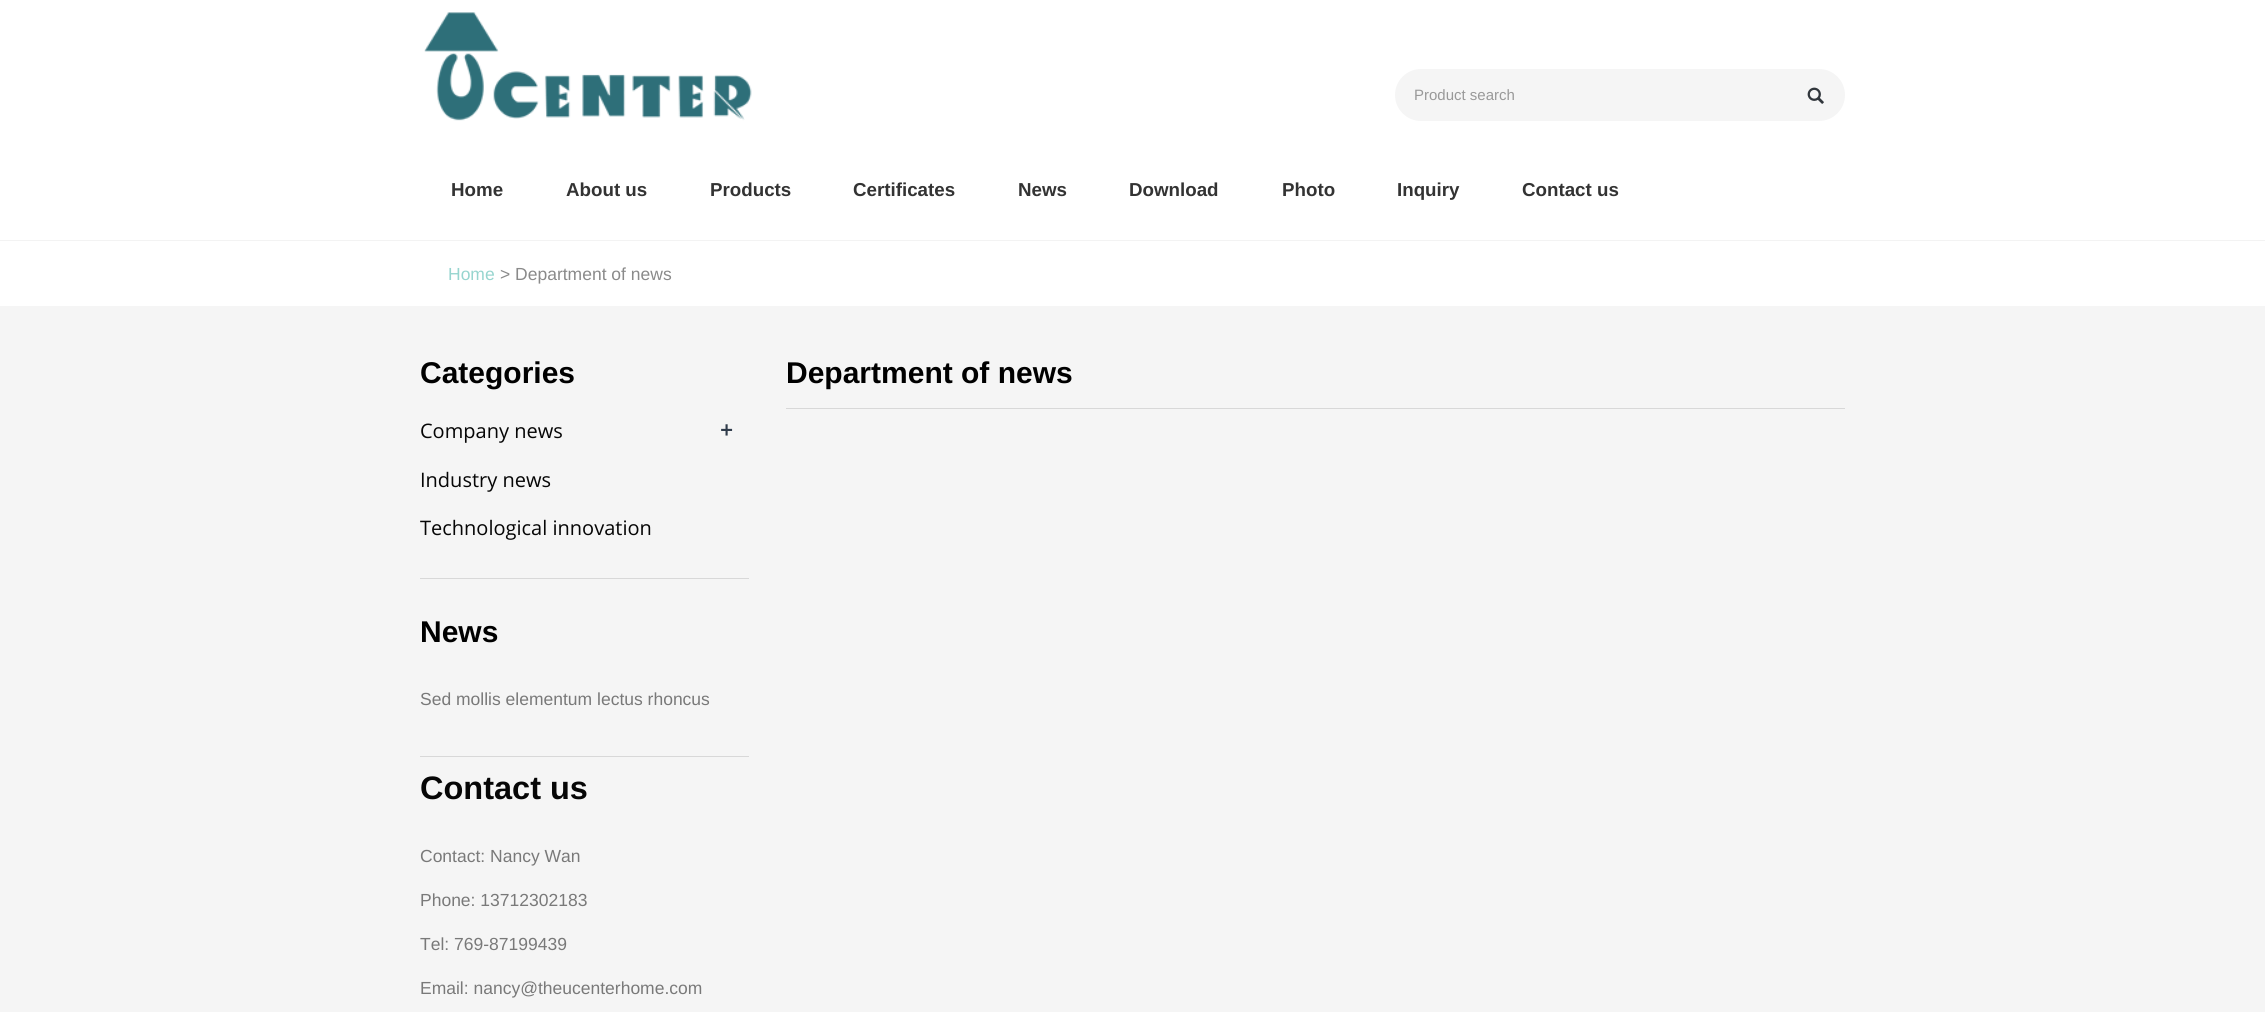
#include <cairo.h>
#include <math.h>
#include <stddef.h>

static cairo_t *ctx;

static void use_color(int r, int g, int b) {
    cairo_set_source_rgb(ctx, r / 255.0, g / 255.0, b / 255.0);
}

static void round_rect(double x, double y, double w, double h, double r) {
    cairo_new_sub_path(ctx);
    cairo_arc(ctx, x + w - r, y + h - r, r, 0, M_PI / 2);
    cairo_arc(ctx, x + r, y + h - r, r, M_PI / 2, M_PI);
    cairo_arc(ctx, x + r, y + r, r, M_PI, 1.5 * M_PI);
    cairo_arc(ctx, x + w - r, y + r, r, 1.5 * M_PI, 2 * M_PI);
    cairo_close_path(ctx);
}

static void picture(const char *path, double x, double y, double w, double h) {
    cairo_surface_t *image = cairo_image_surface_create_from_png(path);
    cairo_save(ctx);
    cairo_set_source_surface(ctx, image, x, y);
    cairo_rectangle(ctx, x, y, w, h);
    cairo_fill(ctx);
    cairo_restore(ctx);
    cairo_surface_destroy(image);
}

int main(void) {
    cairo_surface_t *surface = cairo_image_surface_create(CAIRO_FORMAT_RGB24, 2265, 1012);
    ctx = cairo_create(surface);
    cairo_font_options_t *options = cairo_font_options_create();
    cairo_font_options_set_hint_metrics(options, CAIRO_HINT_METRICS_OFF);
    cairo_font_options_set_hint_style(options, CAIRO_HINT_STYLE_NONE);
    cairo_set_font_options(ctx, options);
    cairo_set_miter_limit(ctx, 4);
    use_color(255, 255, 255);
    cairo_paint(ctx);
    picture("img1.png", 424, 12, 328, 109);
    use_color(245, 245, 245);
    round_rect(1395, 69, 450, 52, 26);
    cairo_fill(ctx);
    cairo_select_font_face(ctx, "Liberation Sans", CAIRO_FONT_SLANT_NORMAL, CAIRO_FONT_WEIGHT_NORMAL);
    cairo_set_font_size(ctx, 15);
    use_color(153, 153, 153);
    cairo_move_to(ctx, 1414, 100);
    cairo_show_text(ctx, "Product search");
    picture("img2.png", 1807, 87, 17, 17);
    cairo_select_font_face(ctx, "Liberation Sans", CAIRO_FONT_SLANT_NORMAL, CAIRO_FONT_WEIGHT_BOLD);
    cairo_set_font_size(ctx, 18.75);
    use_color(51, 51, 51);
    cairo_move_to(ctx, 451, 196);
    cairo_show_text(ctx, "Home");
    cairo_move_to(ctx, 566, 196);
    cairo_show_text(ctx, "About us");
    cairo_move_to(ctx, 710, 196);
    cairo_show_text(ctx, "Products");
    cairo_move_to(ctx, 853, 196);
    cairo_show_text(ctx, "Certificates");
    cairo_move_to(ctx, 1018, 196);
    cairo_show_text(ctx, "News");
    cairo_move_to(ctx, 1129, 196);
    cairo_show_text(ctx, "Download");
    cairo_move_to(ctx, 1282, 196);
    cairo_show_text(ctx, "Photo");
    cairo_move_to(ctx, 1397, 196);
    cairo_show_text(ctx, "Inquiry");
    cairo_move_to(ctx, 1522, 196);
    cairo_show_text(ctx, "Contact us");
    use_color(243, 243, 243);
    cairo_rectangle(ctx, 0, 240, 2265, 1);
    cairo_fill(ctx);
    cairo_select_font_face(ctx, "Liberation Sans", CAIRO_FONT_SLANT_NORMAL, CAIRO_FONT_WEIGHT_NORMAL);
    cairo_set_font_size(ctx, 17.5);
    use_color(151, 213, 207);
    cairo_move_to(ctx, 448, 280);
    cairo_show_text(ctx, "Home");
    use_color(138, 138, 138);
    cairo_move_to(ctx, 500, 280);
    cairo_show_text(ctx, "> Department of news");
    use_color(245, 245, 245);
    cairo_rectangle(ctx, 0, 306, 2265, 706);
    cairo_fill(ctx);
    use_color(216, 216, 216);
    cairo_rectangle(ctx, 420, 578, 329, 1);
    cairo_fill(ctx);
    cairo_select_font_face(ctx, "Liberation Sans", CAIRO_FONT_SLANT_NORMAL, CAIRO_FONT_WEIGHT_BOLD);
    cairo_set_font_size(ctx, 30);
    use_color(0, 0, 0);
    cairo_move_to(ctx, 420, 383);
    cairo_show_text(ctx, "Categories");
    cairo_select_font_face(ctx, "Open Sans", CAIRO_FONT_SLANT_NORMAL, CAIRO_FONT_WEIGHT_NORMAL);
    cairo_set_font_size(ctx, 20);
    use_color(6, 6, 6);
    cairo_move_to(ctx, 420, 438);
    cairo_show_text(ctx, "Company news");
    cairo_select_font_face(ctx, "Open Sans", CAIRO_FONT_SLANT_NORMAL, CAIRO_FONT_WEIGHT_BOLD);
    cairo_set_font_size(ctx, 22);
    use_color(48, 60, 75);
    cairo_move_to(ctx, 720, 438);
    cairo_show_text(ctx, "+");
    cairo_select_font_face(ctx, "Open Sans", CAIRO_FONT_SLANT_NORMAL, CAIRO_FONT_WEIGHT_NORMAL);
    cairo_set_font_size(ctx, 20);
    use_color(6, 6, 6);
    cairo_move_to(ctx, 420, 487);
    cairo_show_text(ctx, "Industry news");
    cairo_move_to(ctx, 420, 535);
    cairo_show_text(ctx, "Technological innovation");
    use_color(216, 216, 216);
    cairo_rectangle(ctx, 420, 756, 329, 1);
    cairo_fill(ctx);
    cairo_select_font_face(ctx, "Liberation Sans", CAIRO_FONT_SLANT_NORMAL, CAIRO_FONT_WEIGHT_BOLD);
    cairo_set_font_size(ctx, 30);
    use_color(0, 0, 0);
    cairo_move_to(ctx, 420, 642);
    cairo_show_text(ctx, "News");
    cairo_select_font_face(ctx, "Liberation Sans", CAIRO_FONT_SLANT_NORMAL, CAIRO_FONT_WEIGHT_NORMAL);
    cairo_set_font_size(ctx, 17.5);
    use_color(121, 121, 121);
    cairo_move_to(ctx, 420, 705);
    cairo_show_text(ctx, "Sed mollis elementum lectus rhoncus");
    cairo_select_font_face(ctx, "Liberation Sans", CAIRO_FONT_SLANT_NORMAL, CAIRO_FONT_WEIGHT_BOLD);
    cairo_set_font_size(ctx, 32.5);
    use_color(6, 6, 6);
    cairo_move_to(ctx, 420, 799);
    cairo_show_text(ctx, "Contact us");
    cairo_select_font_face(ctx, "Liberation Sans", CAIRO_FONT_SLANT_NORMAL, CAIRO_FONT_WEIGHT_NORMAL);
    cairo_set_font_size(ctx, 17.5);
    use_color(121, 121, 121);
    cairo_move_to(ctx, 420, 862);
    cairo_show_text(ctx, "Contact: Nancy Wan");
    cairo_move_to(ctx, 420, 906);
    cairo_show_text(ctx, "Phone: 13712302183");
    cairo_move_to(ctx, 420, 950);
    cairo_show_text(ctx, "Tel: 769-87199439");
    cairo_move_to(ctx, 420, 994);
    cairo_show_text(ctx, "Email: nancy@theucenterhome.com");
    use_color(216, 216, 216);
    cairo_rectangle(ctx, 786, 408, 1059, 1);
    cairo_fill(ctx);
    cairo_select_font_face(ctx, "Liberation Sans", CAIRO_FONT_SLANT_NORMAL, CAIRO_FONT_WEIGHT_BOLD);
    cairo_set_font_size(ctx, 30);
    use_color(0, 0, 0);
    cairo_move_to(ctx, 786, 383);
    cairo_show_text(ctx, "Department of news");
    cairo_surface_write_to_png(surface, "result.png");
    cairo_font_options_destroy(options);
    cairo_destroy(ctx);
    cairo_surface_destroy(surface);
    return 0;
}
